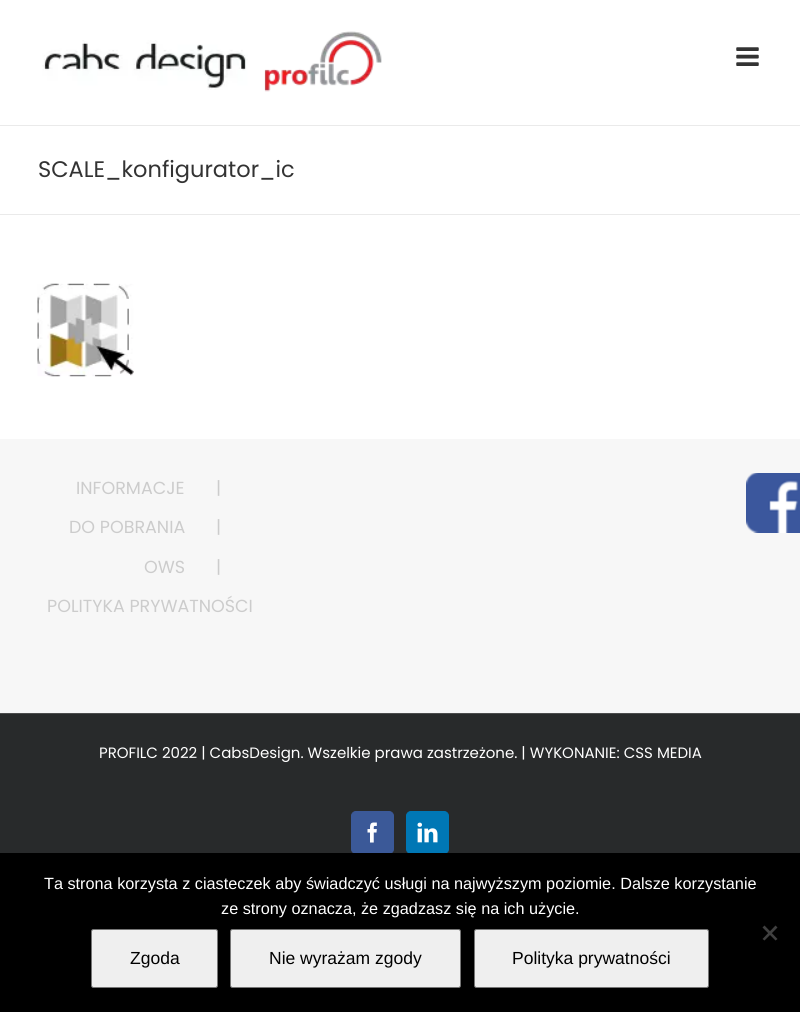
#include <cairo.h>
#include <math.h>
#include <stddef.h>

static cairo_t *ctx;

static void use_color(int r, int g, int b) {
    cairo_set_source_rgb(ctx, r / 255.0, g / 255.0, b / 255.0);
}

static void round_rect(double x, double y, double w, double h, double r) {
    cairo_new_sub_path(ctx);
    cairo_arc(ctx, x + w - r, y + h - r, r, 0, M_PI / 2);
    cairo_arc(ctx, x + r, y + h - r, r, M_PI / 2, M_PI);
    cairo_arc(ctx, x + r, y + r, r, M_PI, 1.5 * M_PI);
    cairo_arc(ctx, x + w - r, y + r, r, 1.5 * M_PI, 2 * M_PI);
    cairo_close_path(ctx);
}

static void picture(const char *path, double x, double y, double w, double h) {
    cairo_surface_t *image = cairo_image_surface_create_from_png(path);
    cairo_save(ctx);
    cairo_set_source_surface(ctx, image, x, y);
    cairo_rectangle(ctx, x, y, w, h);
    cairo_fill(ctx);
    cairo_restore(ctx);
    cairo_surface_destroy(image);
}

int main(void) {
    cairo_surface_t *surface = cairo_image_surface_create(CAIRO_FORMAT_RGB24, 800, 1012);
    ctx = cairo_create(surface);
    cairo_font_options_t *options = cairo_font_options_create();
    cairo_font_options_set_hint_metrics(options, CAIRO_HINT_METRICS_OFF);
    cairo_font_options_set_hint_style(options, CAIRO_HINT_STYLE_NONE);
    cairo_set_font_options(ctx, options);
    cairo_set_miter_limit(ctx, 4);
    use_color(255, 255, 255);
    cairo_paint(ctx);
    picture("img1.png", 42, 40, 206, 50);
    picture("img2.png", 264, 31, 118, 61);
    picture("img3.png", 736, 47, 23, 19);
    use_color(234, 234, 234);
    cairo_rectangle(ctx, 0, 125, 800, 1);
    cairo_fill(ctx);
    cairo_rectangle(ctx, 0, 214, 800, 1);
    cairo_fill(ctx);
    cairo_select_font_face(ctx, "Poppins", CAIRO_FONT_SLANT_NORMAL, CAIRO_FONT_WEIGHT_NORMAL);
    cairo_set_font_size(ctx, 22.5);
    use_color(51, 51, 51);
    cairo_move_to(ctx, 38, 177);
    cairo_show_text(ctx, "SCALE_konfigurator_ic");
    picture("img4.png", 37, 283, 97, 94);
    use_color(247, 247, 247);
    cairo_rectangle(ctx, 0, 439, 800, 274);
    cairo_fill(ctx);
    cairo_set_font_size(ctx, 17.5);
    use_color(204, 204, 204);
    cairo_move_to(ctx, 76, 494);
    cairo_show_text(ctx, "INFORMACJE");
    cairo_move_to(ctx, 216, 494);
    cairo_show_text(ctx, "|");
    cairo_move_to(ctx, 69, 533);
    cairo_show_text(ctx, "DO POBRANIA");
    cairo_move_to(ctx, 216, 533);
    cairo_show_text(ctx, "|");
    cairo_move_to(ctx, 144, 573);
    cairo_show_text(ctx, "OWS");
    cairo_move_to(ctx, 216, 573);
    cairo_show_text(ctx, "|");
    cairo_move_to(ctx, 47, 612);
    cairo_show_text(ctx, "POLITYKA PRYWATNOŚCI");
    use_color(40, 42, 43);
    cairo_rectangle(ctx, 0, 714, 800, 139);
    cairo_fill(ctx);
    use_color(75, 76, 77);
    cairo_rectangle(ctx, 0, 713, 800, 1);
    cairo_fill(ctx);
    cairo_set_font_size(ctx, 15);
    use_color(255, 255, 255);
    cairo_move_to(ctx, 99, 758);
    cairo_show_text(ctx, "PROFILC 2022 | CabsDesign. Wszelkie prawa zastrzeżone. | WYKONANIE: CSS MEDIA");
    use_color(59, 89, 152);
    round_rect(351.5, 811.5, 42, 42, 4.5);
    cairo_fill_preserve(ctx);
    cairo_set_line_width(ctx, 1);
    cairo_stroke(ctx);
    picture("img5.png", 367, 822, 10, 21);
    use_color(0, 119, 181);
    round_rect(406.5, 811.5, 42, 42, 4.5);
    cairo_fill_preserve(ctx);
    cairo_stroke(ctx);
    picture("img6.png", 417, 822, 21, 21);
    picture("img7.png", 746, 473, 54, 60);
    use_color(0, 0, 0);
    cairo_rectangle(ctx, 0, 853, 800, 159);
    cairo_fill(ctx);
    cairo_select_font_face(ctx, "Liberation Sans", CAIRO_FONT_SLANT_NORMAL, CAIRO_FONT_WEIGHT_NORMAL);
    cairo_set_font_size(ctx, 16.25);
    use_color(255, 255, 255);
    cairo_move_to(ctx, 44, 889);
    cairo_show_text(ctx, "Ta strona korzysta z ciasteczek aby świadczyć usługi na najwyższym poziomie. Dalsze korzystanie");
    cairo_move_to(ctx, 221, 914);
    cairo_show_text(ctx, "ze strony oznacza, że zgadzasz się na ich użycie.");
    use_color(64, 64, 64);
    cairo_new_path(ctx);
    cairo_move_to(ctx, 775.5, 925.5);
    cairo_line_to(ctx, 777.5, 927.5);
    cairo_line_to(ctx, 764.5, 940.5);
    cairo_line_to(ctx, 762.5, 939);
    cairo_close_path(ctx);
    cairo_fill(ctx);
    cairo_new_path(ctx);
    cairo_move_to(ctx, 762.5, 927.5);
    cairo_line_to(ctx, 764.5, 925.5);
    cairo_line_to(ctx, 777.5, 939);
    cairo_line_to(ctx, 775.5, 940.5);
    cairo_close_path(ctx);
    cairo_fill(ctx);
    use_color(239, 239, 239);
    round_rect(91.5, 929.5, 126, 58, 2);
    cairo_fill_preserve(ctx);
    use_color(118, 118, 118);
    cairo_stroke(ctx);
    cairo_set_font_size(ctx, 17.5);
    use_color(0, 0, 0);
    cairo_move_to(ctx, 130, 964);
    cairo_show_text(ctx, "Zgoda");
    use_color(239, 239, 239);
    round_rect(230.5, 929.5, 230, 58, 2);
    cairo_fill_preserve(ctx);
    use_color(118, 118, 118);
    cairo_stroke(ctx);
    use_color(0, 0, 0);
    cairo_move_to(ctx, 269, 964);
    cairo_show_text(ctx, "Nie wyrażam zgody");
    use_color(239, 239, 239);
    round_rect(474.5, 929.5, 234, 58, 2);
    cairo_fill_preserve(ctx);
    use_color(118, 118, 118);
    cairo_stroke(ctx);
    use_color(0, 0, 0);
    cairo_move_to(ctx, 512, 964);
    cairo_show_text(ctx, "Polityka prywatności");
    cairo_surface_write_to_png(surface, "result.png");
    cairo_font_options_destroy(options);
    cairo_destroy(ctx);
    cairo_surface_destroy(surface);
    return 0;
}
